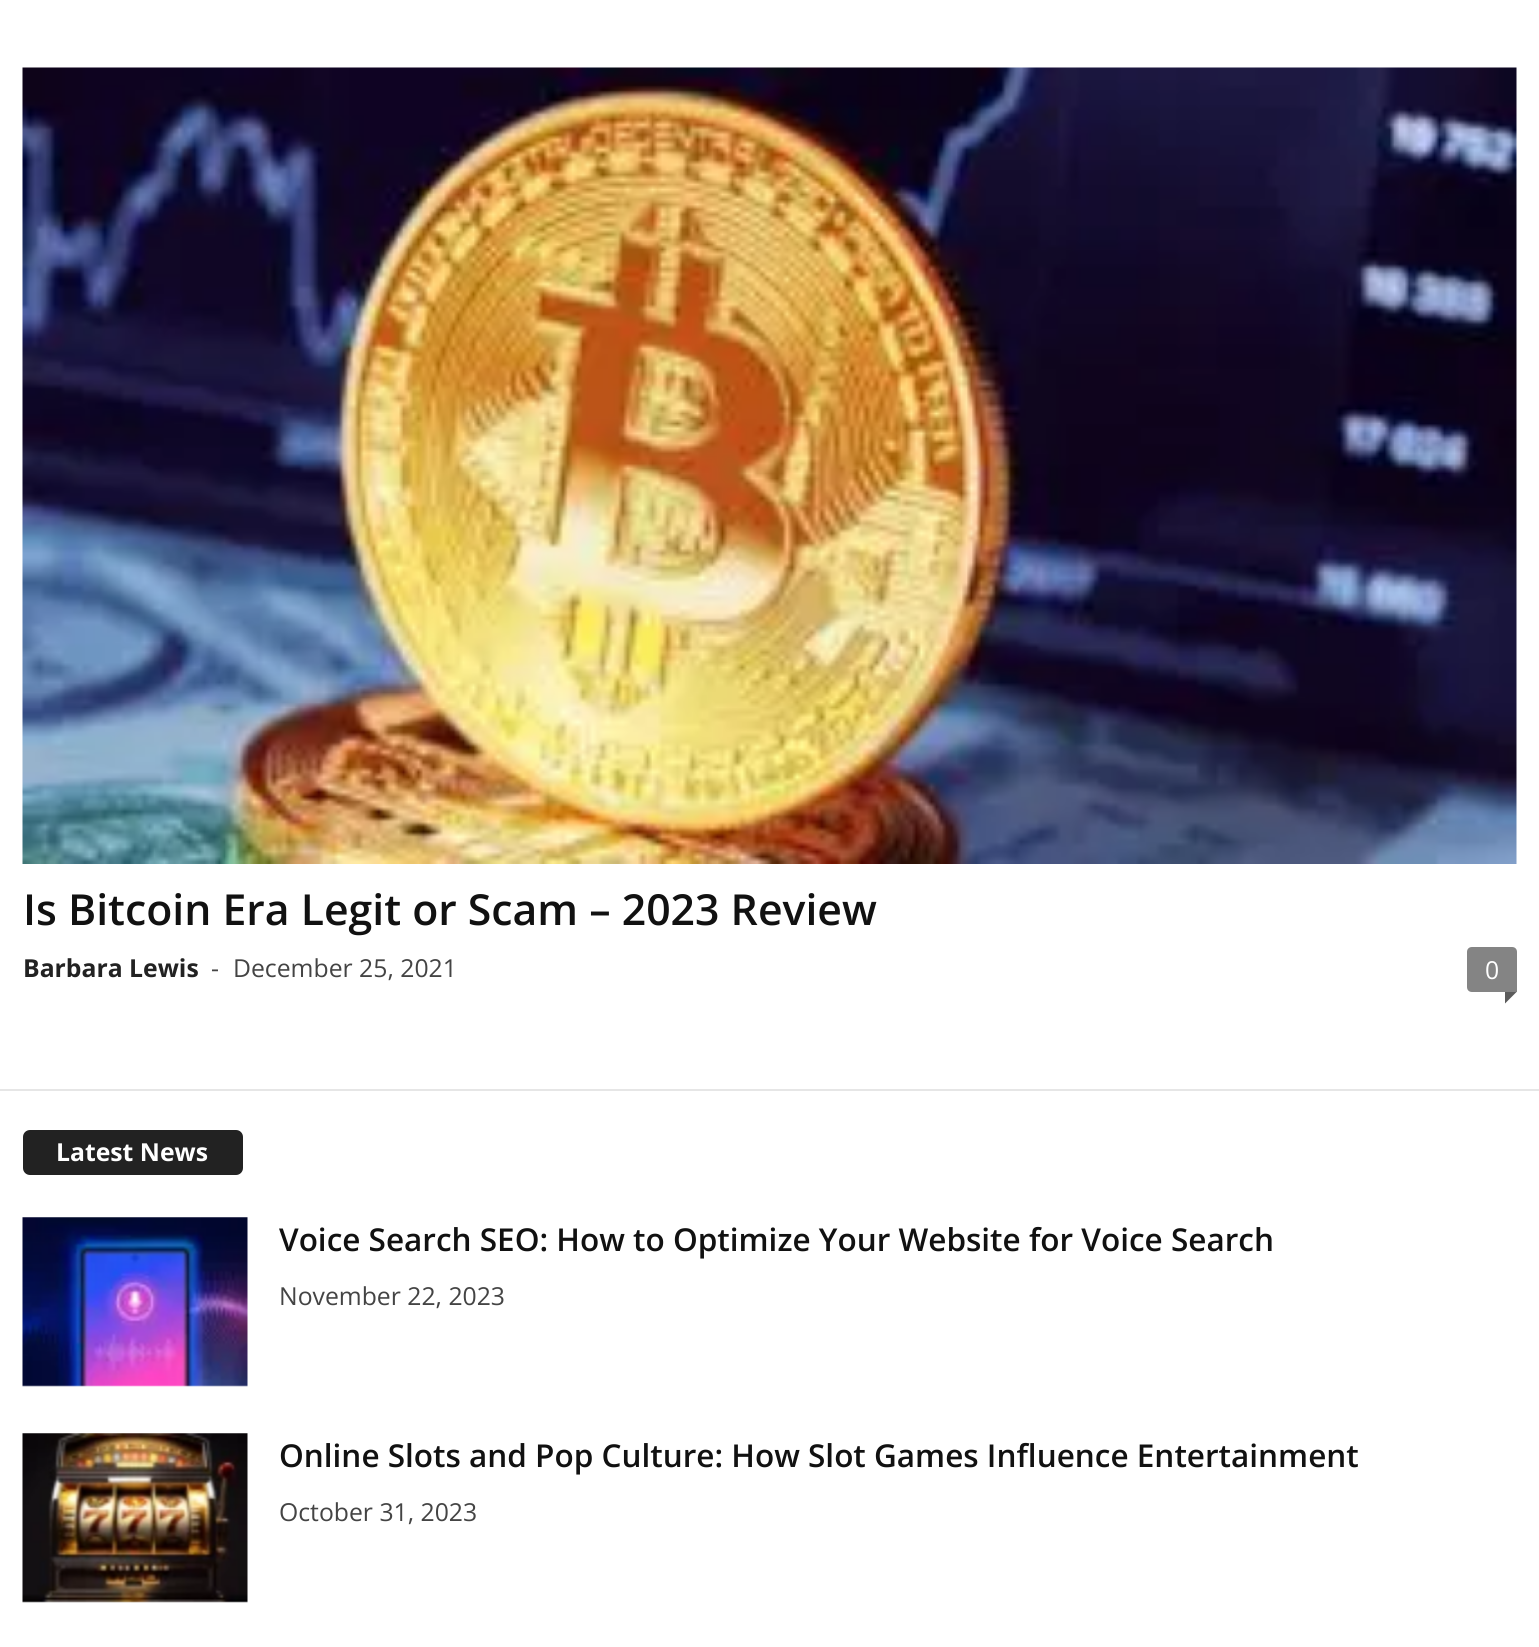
#include <cairo.h>
#include <math.h>
#include <stddef.h>

static cairo_t *ctx;

static void use_color(int r, int g, int b) {
    cairo_set_source_rgb(ctx, r / 255.0, g / 255.0, b / 255.0);
}

static void round_rect(double x, double y, double w, double h, double r) {
    cairo_new_sub_path(ctx);
    cairo_arc(ctx, x + w - r, y + h - r, r, 0, M_PI / 2);
    cairo_arc(ctx, x + r, y + h - r, r, M_PI / 2, M_PI);
    cairo_arc(ctx, x + r, y + r, r, M_PI, 1.5 * M_PI);
    cairo_arc(ctx, x + w - r, y + r, r, 1.5 * M_PI, 2 * M_PI);
    cairo_close_path(ctx);
}

static void picture(const char *path, double x, double y, double w, double h) {
    cairo_surface_t *image = cairo_image_surface_create_from_png(path);
    cairo_save(ctx);
    cairo_set_source_surface(ctx, image, x, y);
    cairo_rectangle(ctx, x, y, w, h);
    cairo_fill(ctx);
    cairo_restore(ctx);
    cairo_surface_destroy(image);
}

int main(void) {
    cairo_surface_t *surface = cairo_image_surface_create(CAIRO_FORMAT_RGB24, 1539, 1647);
    ctx = cairo_create(surface);
    cairo_font_options_t *options = cairo_font_options_create();
    cairo_font_options_set_hint_metrics(options, CAIRO_HINT_METRICS_OFF);
    cairo_font_options_set_hint_style(options, CAIRO_HINT_STYLE_NONE);
    cairo_set_font_options(ctx, options);
    cairo_set_miter_limit(ctx, 4);
    use_color(255, 255, 255);
    cairo_paint(ctx);
    picture("img1.png", 22, 67, 1495, 797);
    cairo_select_font_face(ctx, "Open Sans SemiBold", CAIRO_FONT_SLANT_NORMAL, CAIRO_FONT_WEIGHT_NORMAL);
    cairo_set_font_size(ctx, 42.75);
    use_color(17, 17, 17);
    cairo_move_to(ctx, 23, 925);
    cairo_show_text(ctx, "Is Bitcoin Era Legit or Scam – 2023 Review");
    cairo_select_font_face(ctx, "Open Sans", CAIRO_FONT_SLANT_NORMAL, CAIRO_FONT_WEIGHT_BOLD);
    cairo_set_font_size(ctx, 24.75);
    use_color(34, 34, 34);
    cairo_move_to(ctx, 23, 977);
    cairo_show_text(ctx, "Barbara Lewis");
    cairo_select_font_face(ctx, "Open Sans", CAIRO_FONT_SLANT_NORMAL, CAIRO_FONT_WEIGHT_NORMAL);
    use_color(68, 68, 68);
    cairo_move_to(ctx, 211, 977);
    cairo_show_text(ctx, "-");
    cairo_move_to(ctx, 233, 977);
    cairo_show_text(ctx, "December 25, 2021");
    use_color(132, 132, 132);
    cairo_new_path(ctx);
    cairo_move_to(ctx, 1472, 947);
    cairo_line_to(ctx, 1512, 947);
    cairo_curve_to(ctx, 1515, 947, 1517, 949, 1517, 952);
    cairo_line_to(ctx, 1517, 992);
    cairo_line_to(ctx, 1472, 992);
    cairo_curve_to(ctx, 1469, 992, 1467, 990, 1467, 987);
    cairo_line_to(ctx, 1467, 952);
    cairo_curve_to(ctx, 1467, 949, 1469, 947, 1472, 947);
    cairo_close_path(ctx);
    cairo_fill(ctx);
    use_color(255, 255, 255);
    cairo_move_to(ctx, 1485, 979);
    cairo_show_text(ctx, "0");
    use_color(91, 91, 91);
    cairo_new_path(ctx);
    cairo_move_to(ctx, 1505, 992);
    cairo_line_to(ctx, 1516.5, 992);
    cairo_line_to(ctx, 1505, 1003.5);
    cairo_close_path(ctx);
    cairo_fill(ctx);
    use_color(230, 230, 230);
    cairo_rectangle(ctx, 0, 1089, 1539, 2);
    cairo_fill(ctx);
    use_color(34, 34, 34);
    round_rect(23, 1130, 220, 45, 7);
    cairo_fill(ctx);
    cairo_select_font_face(ctx, "Open Sans", CAIRO_FONT_SLANT_NORMAL, CAIRO_FONT_WEIGHT_BOLD);
    use_color(255, 255, 255);
    cairo_move_to(ctx, 56, 1161);
    cairo_show_text(ctx, "Latest News");
    picture("img2.png", 22, 1217, 226, 170);
    cairo_select_font_face(ctx, "Open Sans SemiBold", CAIRO_FONT_SLANT_NORMAL, CAIRO_FONT_WEIGHT_NORMAL);
    cairo_set_font_size(ctx, 31.5);
    use_color(17, 17, 17);
    cairo_move_to(ctx, 279, 1251);
    cairo_show_text(ctx, "Voice Search SEO: How to Optimize Your Website for Voice Search");
    cairo_select_font_face(ctx, "Open Sans", CAIRO_FONT_SLANT_NORMAL, CAIRO_FONT_WEIGHT_NORMAL);
    cairo_set_font_size(ctx, 24.75);
    use_color(68, 68, 68);
    cairo_move_to(ctx, 279, 1305);
    cairo_show_text(ctx, "November 22, 2023");
    picture("img3.png", 22, 1433, 226, 170);
    cairo_select_font_face(ctx, "Open Sans SemiBold", CAIRO_FONT_SLANT_NORMAL, CAIRO_FONT_WEIGHT_NORMAL);
    cairo_set_font_size(ctx, 31.5);
    use_color(17, 17, 17);
    cairo_move_to(ctx, 279, 1467);
    cairo_show_text(ctx, "Online Slots and Pop Culture: How Slot Games Influence Entertainment");
    cairo_select_font_face(ctx, "Open Sans", CAIRO_FONT_SLANT_NORMAL, CAIRO_FONT_WEIGHT_NORMAL);
    cairo_set_font_size(ctx, 24.75);
    use_color(68, 68, 68);
    cairo_move_to(ctx, 279, 1521);
    cairo_show_text(ctx, "October 31, 2023");
    cairo_surface_write_to_png(surface, "result.png");
    cairo_font_options_destroy(options);
    cairo_destroy(ctx);
    cairo_surface_destroy(surface);
    return 0;
}
